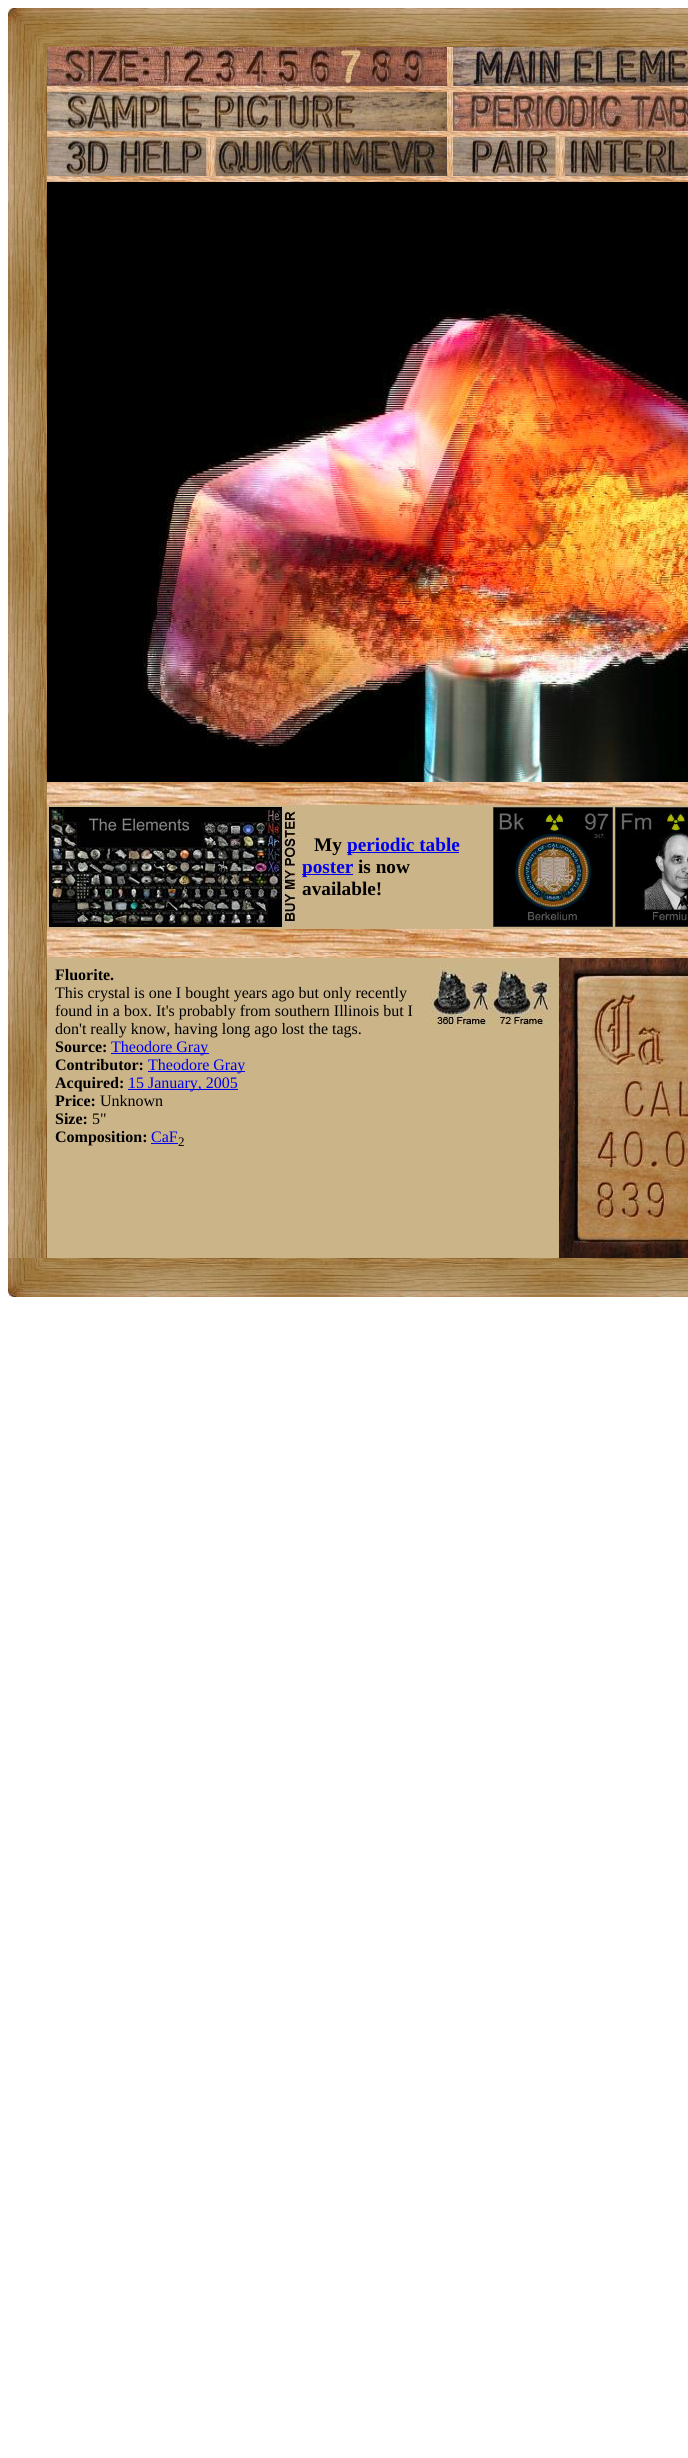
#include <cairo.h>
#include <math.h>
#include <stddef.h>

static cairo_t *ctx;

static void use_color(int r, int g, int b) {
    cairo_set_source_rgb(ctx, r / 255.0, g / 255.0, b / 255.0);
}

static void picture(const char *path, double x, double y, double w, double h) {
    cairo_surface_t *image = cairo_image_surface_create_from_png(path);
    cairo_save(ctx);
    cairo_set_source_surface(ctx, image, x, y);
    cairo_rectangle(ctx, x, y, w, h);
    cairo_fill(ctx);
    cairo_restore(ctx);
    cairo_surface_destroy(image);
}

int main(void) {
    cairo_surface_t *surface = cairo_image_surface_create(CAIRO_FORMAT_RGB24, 688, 2458);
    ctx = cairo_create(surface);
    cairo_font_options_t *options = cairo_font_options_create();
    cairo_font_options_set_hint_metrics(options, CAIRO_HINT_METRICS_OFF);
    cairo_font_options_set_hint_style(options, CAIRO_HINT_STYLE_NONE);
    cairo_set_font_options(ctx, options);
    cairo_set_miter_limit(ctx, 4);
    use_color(255, 255, 255);
    cairo_paint(ctx);
    picture("img1.png", 8, 8, 39, 39);
    picture("img2.png", 47, 8, 641, 39);
    picture("img3.png", 8, 47, 39, 1211);
    use_color(203, 180, 136);
    cairo_rectangle(ctx, 47, 805, 641, 453);
    cairo_fill(ctx);
    picture("img4.png", 47, 47, 400, 39);
    picture("img5.png", 447, 47, 6, 39);
    picture("img6.png", 453, 47, 235, 39);
    picture("img7.png", 47, 86, 641, 6);
    picture("img8.png", 47, 92, 400, 39);
    picture("img5.png", 447, 92, 6, 39);
    picture("img9.png", 453, 92, 235, 39);
    picture("img7.png", 47, 131, 641, 6);
    picture("img10.png", 47, 137, 400, 39);
    picture("img5.png", 447, 137, 6, 39);
    picture("img11.png", 453, 137, 235, 39);
    picture("img7.png", 47, 176, 641, 6);
    picture("img12.png", 47, 182, 641, 600);
    picture("img13.png", 47, 782, 641, 23);
    picture("img14.png", 49, 807, 251, 120);
    cairo_select_font_face(ctx, "Liberation Serif", CAIRO_FONT_SLANT_NORMAL, CAIRO_FONT_WEIGHT_BOLD);
    cairo_set_font_size(ctx, 19.25);
    use_color(0, 0, 0);
    cairo_move_to(ctx, 314, 851);
    cairo_show_text(ctx, "My");
    use_color(0, 0, 238);
    cairo_rectangle(ctx, 347, 852, 112, 1);
    cairo_fill(ctx);
    cairo_move_to(ctx, 347, 851);
    cairo_show_text(ctx, "periodic table");
    cairo_rectangle(ctx, 302, 874, 51, 1);
    cairo_fill(ctx);
    cairo_move_to(ctx, 302, 873);
    cairo_show_text(ctx, "poster");
    use_color(0, 0, 0);
    cairo_move_to(ctx, 358, 873);
    cairo_show_text(ctx, "is now");
    cairo_move_to(ctx, 302, 895);
    cairo_show_text(ctx, "available!");
    picture("img15.png", 493, 807, 120, 120);
    picture("img16.png", 615, 807, 73, 120);
    picture("img13.png", 47, 929, 641, 23);
    picture("img7.png", 47, 952, 641, 6);
    cairo_set_font_size(ctx, 16);
    cairo_move_to(ctx, 55, 980);
    cairo_show_text(ctx, "Fluorite.");
    picture("img17.png", 431, 966, 60, 60);
    picture("img18.png", 491, 966, 60, 60);
    cairo_select_font_face(ctx, "Liberation Serif", CAIRO_FONT_SLANT_NORMAL, CAIRO_FONT_WEIGHT_NORMAL);
    cairo_move_to(ctx, 55, 998);
    cairo_show_text(ctx, "This crystal is one I bought years ago but only recently");
    cairo_move_to(ctx, 55, 1016);
    cairo_show_text(ctx, "found in a box. It's probably from southern Illinois but I");
    cairo_move_to(ctx, 55, 1034);
    cairo_show_text(ctx, "don't really know, having long ago lost the tags.");
    cairo_select_font_face(ctx, "Liberation Serif", CAIRO_FONT_SLANT_NORMAL, CAIRO_FONT_WEIGHT_BOLD);
    cairo_move_to(ctx, 55, 1052);
    cairo_show_text(ctx, "Source:");
    use_color(0, 0, 238);
    cairo_rectangle(ctx, 111, 1053, 98, 1);
    cairo_fill(ctx);
    cairo_select_font_face(ctx, "Liberation Serif", CAIRO_FONT_SLANT_NORMAL, CAIRO_FONT_WEIGHT_NORMAL);
    cairo_move_to(ctx, 111, 1052);
    cairo_show_text(ctx, "Theodore Gray");
    cairo_select_font_face(ctx, "Liberation Serif", CAIRO_FONT_SLANT_NORMAL, CAIRO_FONT_WEIGHT_BOLD);
    use_color(0, 0, 0);
    cairo_move_to(ctx, 55, 1070);
    cairo_show_text(ctx, "Contributor:");
    use_color(0, 0, 238);
    cairo_rectangle(ctx, 148, 1071, 97, 1);
    cairo_fill(ctx);
    cairo_select_font_face(ctx, "Liberation Serif", CAIRO_FONT_SLANT_NORMAL, CAIRO_FONT_WEIGHT_NORMAL);
    cairo_move_to(ctx, 148, 1070);
    cairo_show_text(ctx, "Theodore Gray");
    cairo_select_font_face(ctx, "Liberation Serif", CAIRO_FONT_SLANT_NORMAL, CAIRO_FONT_WEIGHT_BOLD);
    use_color(0, 0, 0);
    cairo_move_to(ctx, 55, 1088);
    cairo_show_text(ctx, "Acquired:");
    use_color(0, 0, 238);
    cairo_rectangle(ctx, 128, 1089, 110, 1);
    cairo_fill(ctx);
    cairo_select_font_face(ctx, "Liberation Serif", CAIRO_FONT_SLANT_NORMAL, CAIRO_FONT_WEIGHT_NORMAL);
    cairo_move_to(ctx, 128, 1088);
    cairo_show_text(ctx, "15 January, 2005");
    cairo_select_font_face(ctx, "Liberation Serif", CAIRO_FONT_SLANT_NORMAL, CAIRO_FONT_WEIGHT_BOLD);
    use_color(0, 0, 0);
    cairo_move_to(ctx, 55, 1106);
    cairo_show_text(ctx, "Price:");
    cairo_select_font_face(ctx, "Liberation Serif", CAIRO_FONT_SLANT_NORMAL, CAIRO_FONT_WEIGHT_NORMAL);
    cairo_move_to(ctx, 100, 1106);
    cairo_show_text(ctx, "Unknown");
    cairo_select_font_face(ctx, "Liberation Serif", CAIRO_FONT_SLANT_NORMAL, CAIRO_FONT_WEIGHT_BOLD);
    cairo_move_to(ctx, 55, 1124);
    cairo_show_text(ctx, "Size:");
    cairo_select_font_face(ctx, "Liberation Serif", CAIRO_FONT_SLANT_NORMAL, CAIRO_FONT_WEIGHT_NORMAL);
    cairo_move_to(ctx, 92, 1124);
    cairo_show_text(ctx, "5\"");
    cairo_select_font_face(ctx, "Liberation Serif", CAIRO_FONT_SLANT_NORMAL, CAIRO_FONT_WEIGHT_BOLD);
    cairo_move_to(ctx, 55, 1142);
    cairo_show_text(ctx, "Composition:");
    cairo_select_font_face(ctx, "Liberation Serif", CAIRO_FONT_SLANT_NORMAL, CAIRO_FONT_WEIGHT_NORMAL);
    use_color(0, 0, 238);
    cairo_move_to(ctx, 151, 1142);
    cairo_show_text(ctx, "CaF");
    cairo_rectangle(ctx, 151, 1143, 27, 1);
    cairo_fill(ctx);
    cairo_set_font_size(ctx, 13);
    use_color(0, 0, 0);
    cairo_move_to(ctx, 178, 1146);
    cairo_show_text(ctx, "2");
    picture("img19.png", 559, 958, 129, 300);
    picture("img20.png", 8, 1258, 39, 39);
    picture("img21.png", 47, 1258, 641, 39);
    cairo_surface_write_to_png(surface, "result.png");
    cairo_font_options_destroy(options);
    cairo_destroy(ctx);
    cairo_surface_destroy(surface);
    return 0;
}
